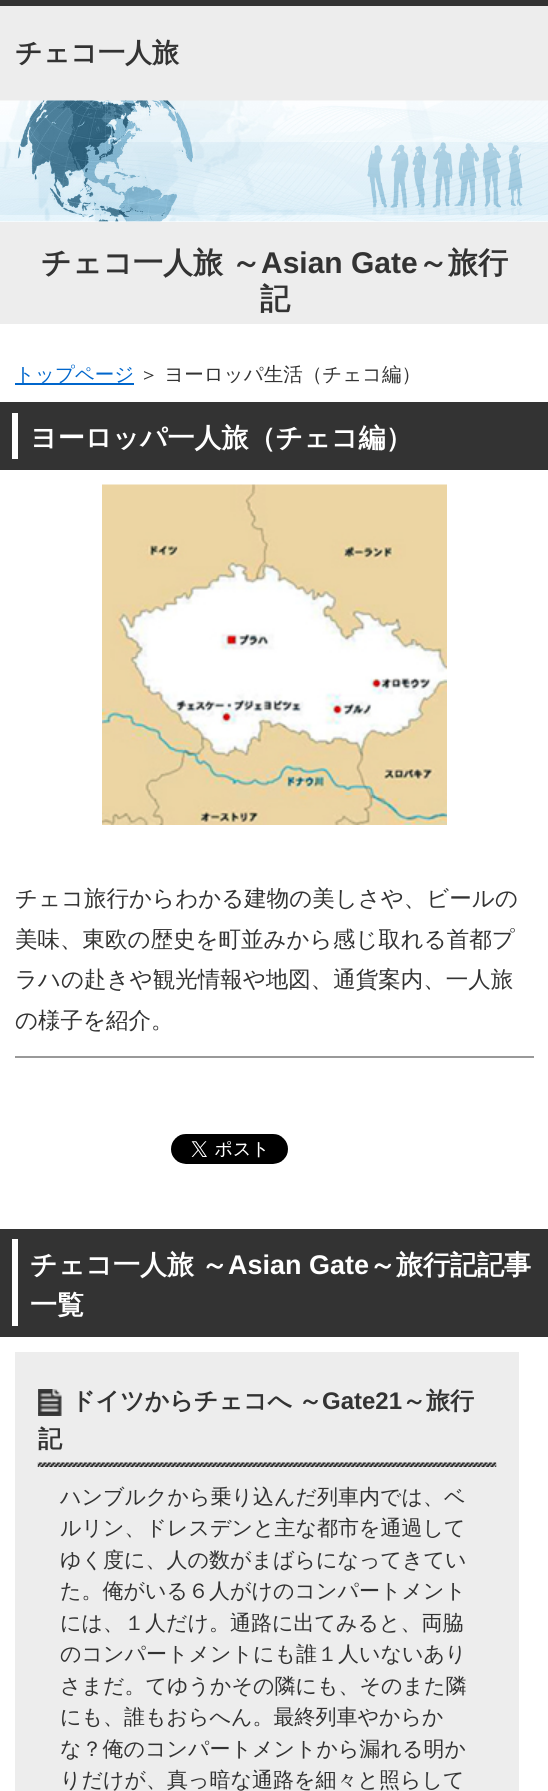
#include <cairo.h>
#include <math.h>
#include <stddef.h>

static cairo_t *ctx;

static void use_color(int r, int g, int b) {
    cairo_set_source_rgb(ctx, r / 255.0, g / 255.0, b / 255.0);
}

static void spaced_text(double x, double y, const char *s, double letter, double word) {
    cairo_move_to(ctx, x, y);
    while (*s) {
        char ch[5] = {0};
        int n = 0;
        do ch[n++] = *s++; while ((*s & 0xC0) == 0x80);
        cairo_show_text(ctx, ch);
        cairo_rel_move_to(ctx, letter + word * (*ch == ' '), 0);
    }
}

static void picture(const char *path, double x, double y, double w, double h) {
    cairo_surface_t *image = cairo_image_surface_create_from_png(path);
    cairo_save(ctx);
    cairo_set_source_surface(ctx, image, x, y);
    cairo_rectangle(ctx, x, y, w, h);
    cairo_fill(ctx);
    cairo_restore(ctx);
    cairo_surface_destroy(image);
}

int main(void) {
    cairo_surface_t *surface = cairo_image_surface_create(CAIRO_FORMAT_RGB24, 548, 1791);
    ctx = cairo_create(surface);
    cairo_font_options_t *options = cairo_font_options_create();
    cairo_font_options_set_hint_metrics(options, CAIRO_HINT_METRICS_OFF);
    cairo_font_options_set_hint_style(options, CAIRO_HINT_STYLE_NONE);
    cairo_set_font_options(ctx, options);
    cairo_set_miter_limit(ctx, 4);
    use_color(237, 237, 237);
    cairo_paint(ctx);
    use_color(51, 51, 51);
    cairo_rectangle(ctx, 0, 0, 548, 6);
    cairo_fill(ctx);
    cairo_select_font_face(ctx, "WenQuanYi Zen Hei", CAIRO_FONT_SLANT_NORMAL, CAIRO_FONT_WEIGHT_BOLD);
    cairo_set_font_size(ctx, 27);
    cairo_move_to(ctx, 15, 62);
    cairo_show_text(ctx, "チェコ一人旅");
    picture("img1.png", 0, 100, 548, 122);
    cairo_set_font_size(ctx, 30);
    cairo_move_to(ctx, 41, 273);
    cairo_show_text(ctx, "チェコ一人旅");
    cairo_move_to(ctx, 231, 273);
    cairo_show_text(ctx, "～");
    cairo_select_font_face(ctx, "Liberation Sans", CAIRO_FONT_SLANT_NORMAL, CAIRO_FONT_WEIGHT_BOLD);
    cairo_move_to(ctx, 261, 273);
    cairo_show_text(ctx, "Asian Gate");
    cairo_select_font_face(ctx, "WenQuanYi Zen Hei", CAIRO_FONT_SLANT_NORMAL, CAIRO_FONT_WEIGHT_BOLD);
    cairo_move_to(ctx, 418, 273);
    cairo_show_text(ctx, "～旅行");
    cairo_move_to(ctx, 260, 309);
    cairo_show_text(ctx, "記");
    use_color(255, 255, 255);
    cairo_rectangle(ctx, 0, 324, 548, 1467);
    cairo_fill(ctx);
    use_color(0, 102, 204);
    cairo_rectangle(ctx, 15, 383, 119, 2);
    cairo_fill(ctx);
    cairo_select_font_face(ctx, "WenQuanYi Zen Hei Medium", CAIRO_FONT_SLANT_NORMAL, CAIRO_FONT_WEIGHT_NORMAL);
    cairo_set_font_size(ctx, 19.5);
    cairo_move_to(ctx, 15, 381);
    cairo_show_text(ctx, "トップページ");
    use_color(51, 51, 51);
    cairo_move_to(ctx, 139, 381);
    cairo_show_text(ctx, "＞ ヨーロッパ生活（チェコ編）");
    cairo_rectangle(ctx, 0, 402, 548, 68);
    cairo_fill(ctx);
    use_color(255, 255, 255);
    cairo_rectangle(ctx, 12, 413, 6, 46);
    cairo_fill(ctx);
    cairo_select_font_face(ctx, "WenQuanYi Zen Hei", CAIRO_FONT_SLANT_NORMAL, CAIRO_FONT_WEIGHT_BOLD);
    cairo_set_font_size(ctx, 27);
    cairo_move_to(ctx, 30, 447);
    cairo_show_text(ctx, "ヨーロッパ一人旅（チェコ編）");
    picture("img2.png", 102, 484, 345, 341);
    cairo_select_font_face(ctx, "WenQuanYi Zen Hei Medium", CAIRO_FONT_SLANT_NORMAL, CAIRO_FONT_WEIGHT_NORMAL);
    cairo_set_font_size(ctx, 22.5);
    use_color(51, 51, 51);
    cairo_move_to(ctx, 15, 906);
    cairo_show_text(ctx, "チェコ旅行からわかる建物の美しさや、ビールの");
    cairo_move_to(ctx, 15, 947);
    cairo_show_text(ctx, "美味、東欧の歴史を町並みから感じ取れる首都プ");
    cairo_move_to(ctx, 15, 987);
    cairo_show_text(ctx, "ラハの赴きや観光情報や地図、通貨案内、一人旅");
    cairo_move_to(ctx, 15, 1028);
    cairo_show_text(ctx, "の様子を紹介。");
    use_color(153, 153, 153);
    cairo_rectangle(ctx, 15, 1056, 519, 2);
    cairo_fill(ctx);
    picture("img3.png", 171, 1134, 117, 30);
    use_color(51, 51, 51);
    cairo_rectangle(ctx, 0, 1229, 548, 108);
    cairo_fill(ctx);
    use_color(255, 255, 255);
    cairo_rectangle(ctx, 12, 1239, 6, 87);
    cairo_fill(ctx);
    cairo_select_font_face(ctx, "WenQuanYi Zen Hei", CAIRO_FONT_SLANT_NORMAL, CAIRO_FONT_WEIGHT_BOLD);
    cairo_set_font_size(ctx, 27);
    cairo_move_to(ctx, 30, 1274);
    cairo_show_text(ctx, "チェコ一人旅");
    cairo_move_to(ctx, 201, 1274);
    cairo_show_text(ctx, "～");
    cairo_select_font_face(ctx, "Liberation Sans", CAIRO_FONT_SLANT_NORMAL, CAIRO_FONT_WEIGHT_BOLD);
    cairo_move_to(ctx, 228, 1274);
    cairo_show_text(ctx, "Asian Gate");
    cairo_select_font_face(ctx, "WenQuanYi Zen Hei", CAIRO_FONT_SLANT_NORMAL, CAIRO_FONT_WEIGHT_BOLD);
    cairo_move_to(ctx, 369, 1274);
    cairo_show_text(ctx, "～旅行記記事");
    cairo_move_to(ctx, 30, 1314);
    cairo_show_text(ctx, "一覧");
    use_color(237, 237, 237);
    cairo_rectangle(ctx, 15, 1352, 504, 439);
    cairo_fill(ctx);
    picture("img4.png", 37, 1462, 460, 5);
    picture("img5.png", 38, 1389, 24, 27);
    cairo_set_font_size(ctx, 24);
    use_color(51, 51, 51);
    spaced_text(71, 1409, "ドイツからチェコへ ～", 0, -1);
    cairo_select_font_face(ctx, "Liberation Sans", CAIRO_FONT_SLANT_NORMAL, CAIRO_FONT_WEIGHT_BOLD);
    cairo_move_to(ctx, 322, 1409);
    cairo_show_text(ctx, "Gate21");
    cairo_select_font_face(ctx, "WenQuanYi Zen Hei", CAIRO_FONT_SLANT_NORMAL, CAIRO_FONT_WEIGHT_BOLD);
    cairo_move_to(ctx, 402, 1409);
    cairo_show_text(ctx, "～旅行");
    cairo_move_to(ctx, 38, 1447);
    cairo_show_text(ctx, "記");
    cairo_select_font_face(ctx, "WenQuanYi Zen Hei Medium", CAIRO_FONT_SLANT_NORMAL, CAIRO_FONT_WEIGHT_NORMAL);
    cairo_set_font_size(ctx, 21);
    cairo_move_to(ctx, 60, 1504);
    cairo_show_text(ctx, "ハンブルクから乗り込んだ列車内では、ベ");
    cairo_move_to(ctx, 60, 1535);
    cairo_show_text(ctx, "ルリン、ドレスデンと主な都市を通過して");
    cairo_move_to(ctx, 60, 1567);
    cairo_show_text(ctx, "ゆく度に、人の数がまばらになってきてい");
    cairo_move_to(ctx, 60, 1598);
    cairo_show_text(ctx, "た。俺がいる６人がけのコンパートメント");
    cairo_move_to(ctx, 60, 1630);
    cairo_show_text(ctx, "には、１人だけ。通路に出てみると、両脇");
    cairo_move_to(ctx, 60, 1661);
    cairo_show_text(ctx, "のコンパートメントにも誰１人いないあり");
    cairo_move_to(ctx, 60, 1693);
    cairo_show_text(ctx, "さまだ。てゆうかその隣にも、そのまた隣");
    cairo_move_to(ctx, 60, 1724);
    cairo_show_text(ctx, "にも、誰もおらへん。最終列車やからか");
    cairo_move_to(ctx, 60, 1756);
    cairo_show_text(ctx, "な？俺のコンパートメントから漏れる明か");
    cairo_move_to(ctx, 60, 1787);
    cairo_show_text(ctx, "りだけが、真っ暗な通路を細々と照らして");
    cairo_surface_write_to_png(surface, "result.png");
    cairo_font_options_destroy(options);
    cairo_destroy(ctx);
    cairo_surface_destroy(surface);
    return 0;
}
